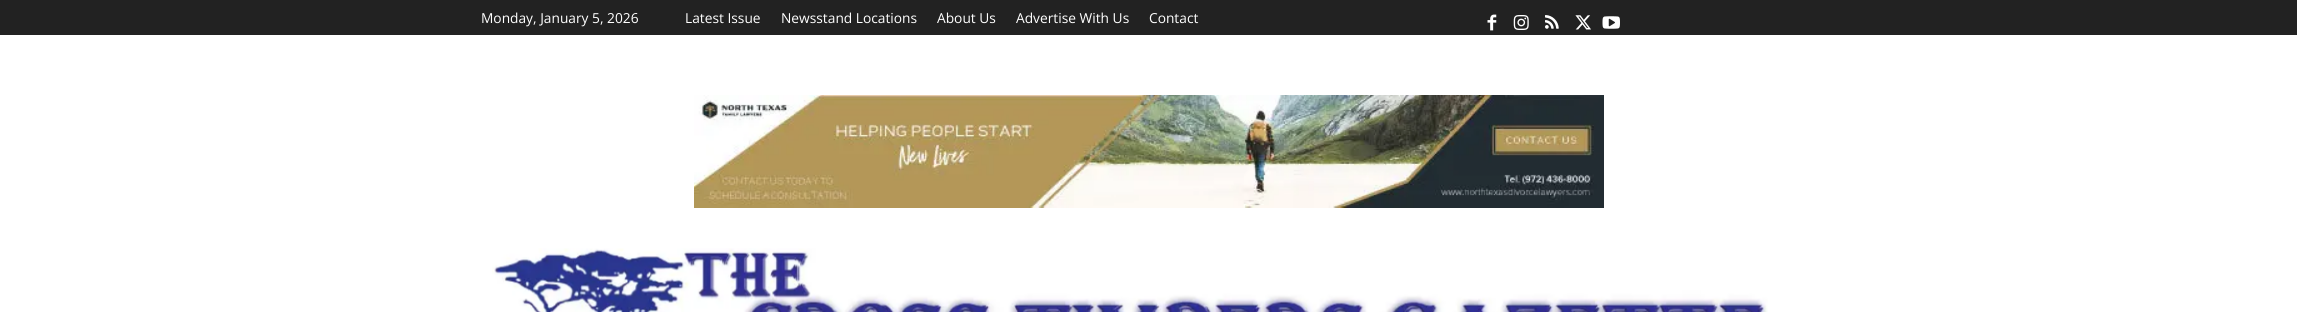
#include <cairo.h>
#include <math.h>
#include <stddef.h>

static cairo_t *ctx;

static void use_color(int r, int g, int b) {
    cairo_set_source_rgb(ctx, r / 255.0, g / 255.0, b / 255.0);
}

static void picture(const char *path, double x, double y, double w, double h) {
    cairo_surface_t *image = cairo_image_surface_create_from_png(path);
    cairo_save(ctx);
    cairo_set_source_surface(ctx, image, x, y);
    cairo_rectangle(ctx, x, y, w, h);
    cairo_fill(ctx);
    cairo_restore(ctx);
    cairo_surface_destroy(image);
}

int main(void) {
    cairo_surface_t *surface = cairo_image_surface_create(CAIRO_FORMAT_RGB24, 2297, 312);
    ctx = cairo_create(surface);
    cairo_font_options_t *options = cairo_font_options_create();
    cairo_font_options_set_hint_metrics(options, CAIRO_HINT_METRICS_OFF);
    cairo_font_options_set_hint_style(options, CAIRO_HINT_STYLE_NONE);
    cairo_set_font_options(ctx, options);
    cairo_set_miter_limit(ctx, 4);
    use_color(255, 255, 255);
    cairo_paint(ctx);
    use_color(34, 34, 34);
    cairo_rectangle(ctx, 0, 0, 2297, 35);
    cairo_fill(ctx);
    cairo_select_font_face(ctx, "Open Sans", CAIRO_FONT_SLANT_NORMAL, CAIRO_FONT_WEIGHT_NORMAL);
    cairo_set_font_size(ctx, 13.75);
    use_color(255, 255, 255);
    cairo_move_to(ctx, 481, 23);
    cairo_show_text(ctx, "Monday, January 5, 2026");
    cairo_move_to(ctx, 685, 23);
    cairo_show_text(ctx, "Latest Issue");
    cairo_move_to(ctx, 781, 23);
    cairo_show_text(ctx, "Newsstand Locations");
    cairo_move_to(ctx, 937, 23);
    cairo_show_text(ctx, "About Us");
    cairo_move_to(ctx, 1016, 23);
    cairo_show_text(ctx, "Advertise With Us");
    cairo_move_to(ctx, 1149, 23);
    cairo_show_text(ctx, "Contact");
    picture("img1.png", 1487, 14, 10, 17);
    picture("img2.png", 1513, 15, 16, 15);
    picture("img3.png", 1545, 15, 14, 14);
    picture("img4.png", 1575, 15, 16, 15);
    picture("img5.png", 1602, 16, 18, 13);
    picture("img6.png", 694, 95, 910, 113);
    picture("img7.png", 492, 248, 1276, 64);
    cairo_surface_write_to_png(surface, "result.png");
    cairo_font_options_destroy(options);
    cairo_destroy(ctx);
    cairo_surface_destroy(surface);
    return 0;
}
